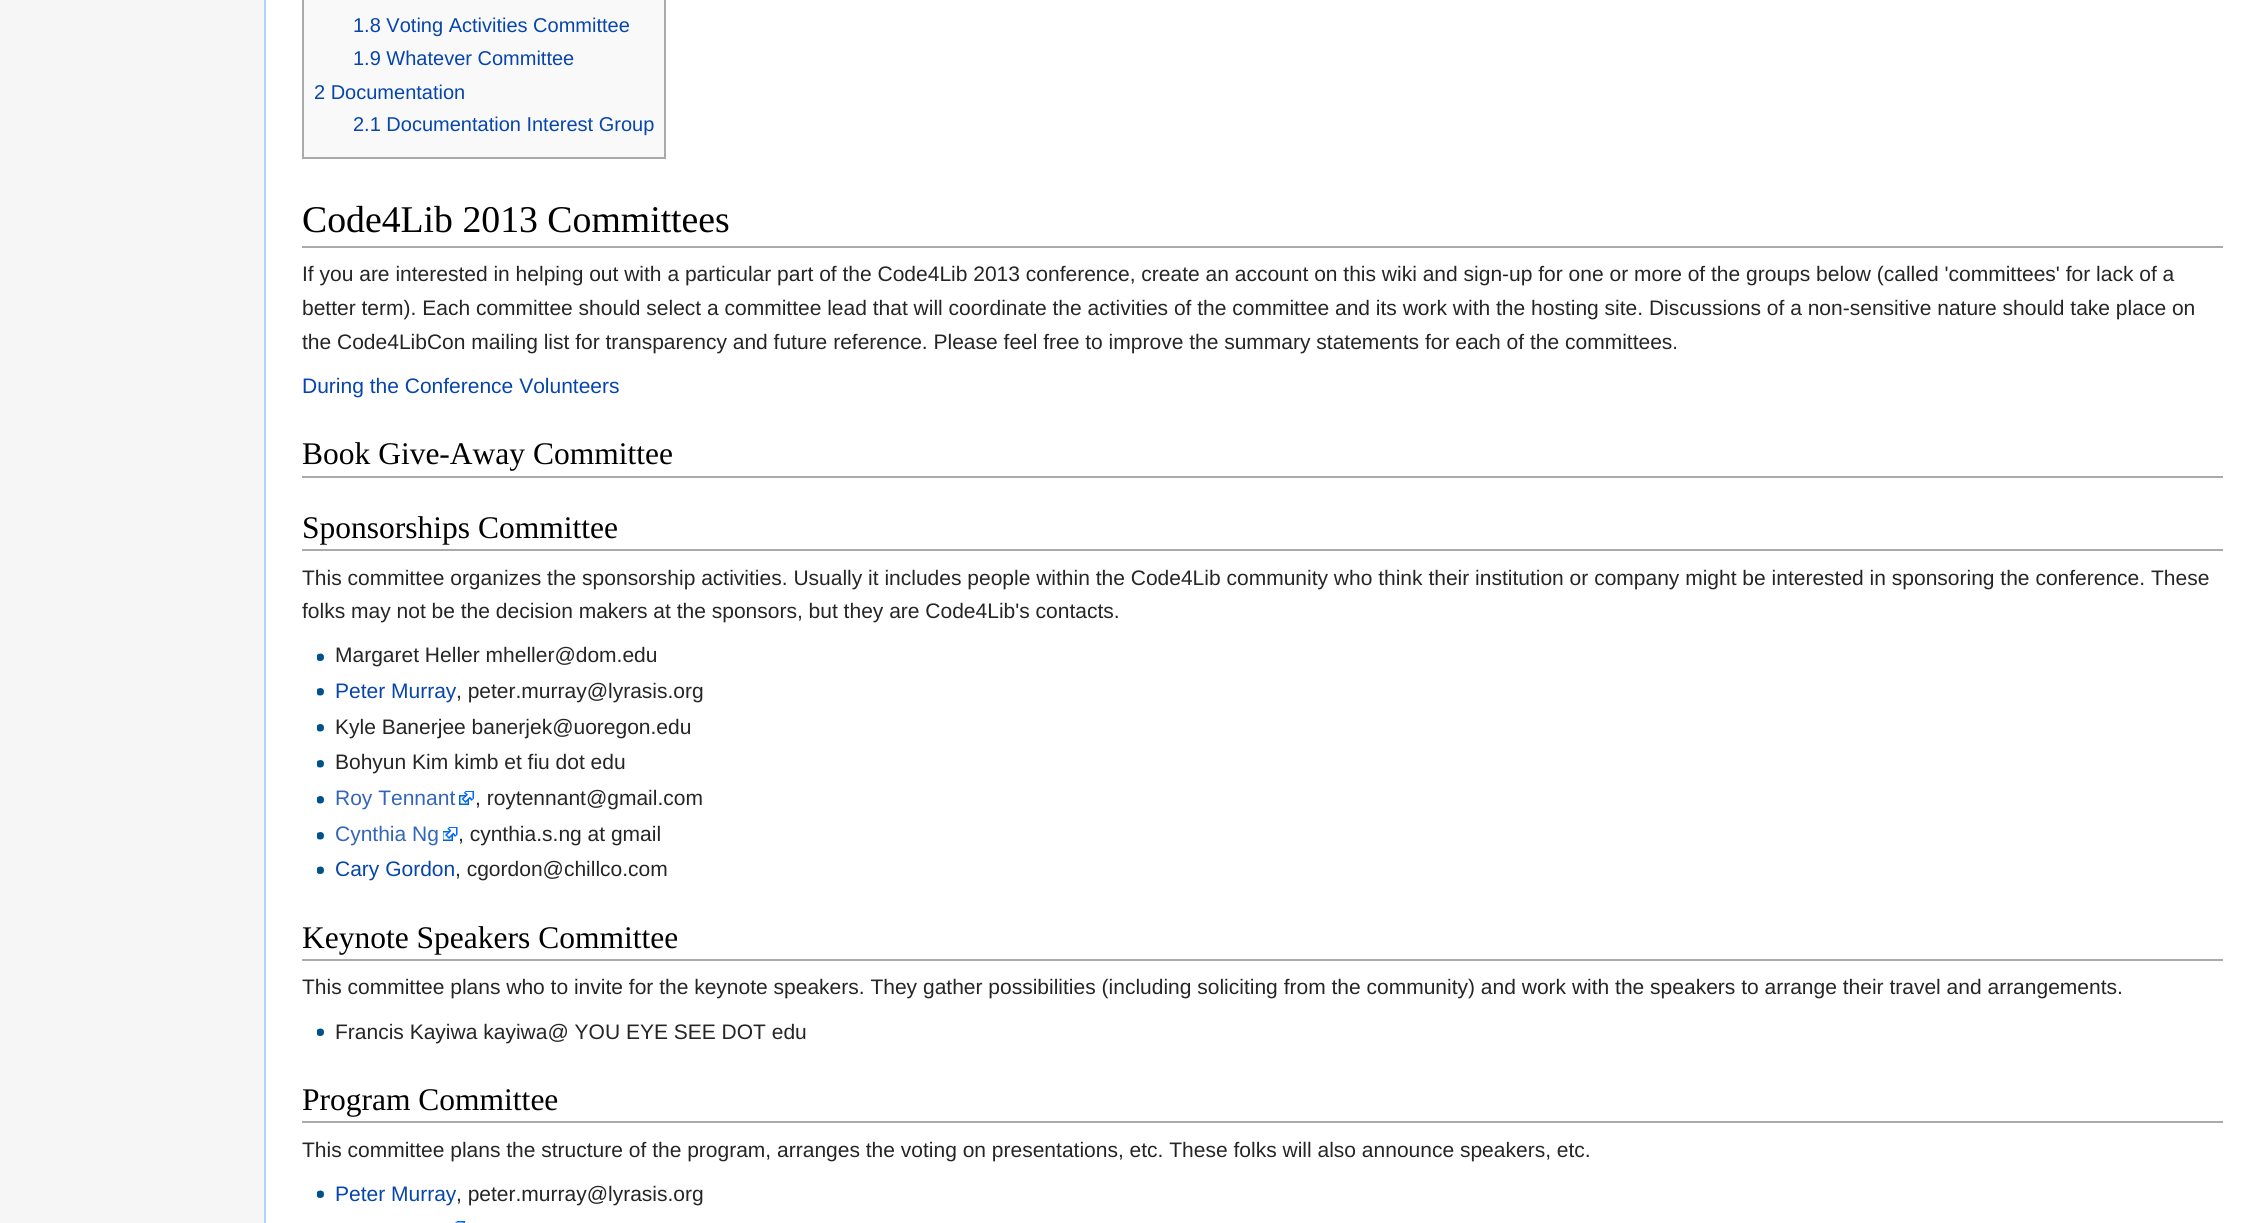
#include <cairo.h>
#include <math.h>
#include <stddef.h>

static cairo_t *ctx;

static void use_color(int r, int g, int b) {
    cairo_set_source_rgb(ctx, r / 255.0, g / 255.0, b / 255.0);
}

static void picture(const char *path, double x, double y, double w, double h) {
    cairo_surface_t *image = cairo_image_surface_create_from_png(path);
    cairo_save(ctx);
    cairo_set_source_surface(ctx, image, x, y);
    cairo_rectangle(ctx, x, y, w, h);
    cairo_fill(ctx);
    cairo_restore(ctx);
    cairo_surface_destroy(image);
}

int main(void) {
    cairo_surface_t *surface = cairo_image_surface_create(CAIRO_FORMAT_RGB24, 2258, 1223);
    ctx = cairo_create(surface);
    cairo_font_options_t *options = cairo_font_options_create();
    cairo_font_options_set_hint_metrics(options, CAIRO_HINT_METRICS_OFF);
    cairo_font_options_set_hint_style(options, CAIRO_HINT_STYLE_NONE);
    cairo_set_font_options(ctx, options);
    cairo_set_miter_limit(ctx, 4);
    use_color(246, 246, 246);
    cairo_paint(ctx);
    use_color(255, 255, 255);
    cairo_rectangle(ctx, 266, 0, 1992, 1223);
    cairo_fill(ctx);
    use_color(167, 215, 249);
    cairo_rectangle(ctx, 264, 0, 2, 1223);
    cairo_fill(ctx);
    use_color(249, 249, 249);
    cairo_rectangle(ctx, 303, -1, 362, 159);
    cairo_fill_preserve(ctx);
    use_color(170, 170, 170);
    cairo_stroke(ctx);
    cairo_select_font_face(ctx, "Liberation Sans", CAIRO_FONT_SLANT_NORMAL, CAIRO_FONT_WEIGHT_NORMAL);
    cairo_set_font_size(ctx, 20);
    use_color(6, 69, 173);
    cairo_move_to(ctx, 353, 32);
    cairo_show_text(ctx, "1.8 Voting Activities Committee");
    cairo_move_to(ctx, 353, 65);
    cairo_show_text(ctx, "1.9 Whatever Committee");
    cairo_move_to(ctx, 314, 99);
    cairo_show_text(ctx, "2 Documentation");
    cairo_move_to(ctx, 353, 131);
    cairo_show_text(ctx, "2.1 Documentation Interest Group");
    use_color(170, 170, 170);
    cairo_rectangle(ctx, 302, 246, 1921, 2);
    cairo_fill(ctx);
    cairo_select_font_face(ctx, "Liberation Serif", CAIRO_FONT_SLANT_NORMAL, CAIRO_FONT_WEIGHT_NORMAL);
    cairo_set_font_size(ctx, 37.75);
    use_color(0, 0, 0);
    cairo_move_to(ctx, 302, 232);
    cairo_show_text(ctx, "Code4Lib 2013 Committees");
    cairo_select_font_face(ctx, "Liberation Sans", CAIRO_FONT_SLANT_NORMAL, CAIRO_FONT_WEIGHT_NORMAL);
    cairo_set_font_size(ctx, 21);
    use_color(37, 37, 37);
    cairo_move_to(ctx, 302, 281);
    cairo_show_text(ctx, "If you are interested in helping out with a particular part of the Code4Lib 2013 conference, create an account on this wiki and sign-up for one or more of the groups below (called 'committees' for lack of a");
    cairo_move_to(ctx, 302, 315);
    cairo_show_text(ctx, "better term). Each committee should select a committee lead that will coordinate the activities of the committee and its work with the hosting site. Discussions of a non-sensitive nature should take place on");
    cairo_move_to(ctx, 302, 349);
    cairo_show_text(ctx, "the Code4LibCon mailing list for transparency and future reference. Please feel free to improve the summary statements for each of the committees.");
    use_color(6, 69, 173);
    cairo_move_to(ctx, 302, 393);
    cairo_show_text(ctx, "During the Conference Volunteers");
    use_color(170, 170, 170);
    cairo_rectangle(ctx, 302, 476, 1921, 2);
    cairo_fill(ctx);
    cairo_select_font_face(ctx, "Liberation Serif", CAIRO_FONT_SLANT_NORMAL, CAIRO_FONT_WEIGHT_NORMAL);
    cairo_set_font_size(ctx, 31.5);
    use_color(0, 0, 0);
    cairo_move_to(ctx, 302, 464);
    cairo_show_text(ctx, "Book Give-Away Committee");
    use_color(170, 170, 170);
    cairo_rectangle(ctx, 302, 549, 1921, 2);
    cairo_fill(ctx);
    use_color(0, 0, 0);
    cairo_move_to(ctx, 302, 538);
    cairo_show_text(ctx, "Sponsorships Committee");
    cairo_select_font_face(ctx, "Liberation Sans", CAIRO_FONT_SLANT_NORMAL, CAIRO_FONT_WEIGHT_NORMAL);
    cairo_set_font_size(ctx, 21);
    use_color(37, 37, 37);
    cairo_move_to(ctx, 302, 585);
    cairo_show_text(ctx, "This committee organizes the sponsorship activities. Usually it includes people within the Code4Lib community who think their institution or company might be interested in sponsoring the conference. These");
    cairo_move_to(ctx, 302, 618);
    cairo_show_text(ctx, "folks may not be the decision makers at the sponsors, but they are Code4Lib's contacts.");
    picture("img1.png", 317, 653, 7, 8);
    cairo_move_to(ctx, 335, 662);
    cairo_show_text(ctx, "Margaret Heller mheller@dom.edu");
    picture("img2.png", 317, 688, 7, 8);
    use_color(6, 69, 173);
    cairo_move_to(ctx, 335, 698);
    cairo_show_text(ctx, "Peter Murray");
    use_color(37, 37, 37);
    cairo_move_to(ctx, 456, 698);
    cairo_show_text(ctx, ", peter.murray@lyrasis.org");
    picture("img3.png", 317, 724, 7, 8);
    cairo_move_to(ctx, 335, 734);
    cairo_show_text(ctx, "Kyle Banerjee banerjek@uoregon.edu");
    picture("img3.png", 317, 760, 7, 8);
    cairo_move_to(ctx, 335, 769);
    cairo_show_text(ctx, "Bohyun Kim kimb et fiu dot edu");
    picture("img3.png", 317, 796, 7, 8);
    use_color(51, 102, 187);
    cairo_move_to(ctx, 335, 805);
    cairo_show_text(ctx, "Roy Tennant");
    picture("img4.png", 459, 791, 15, 14);
    use_color(37, 37, 37);
    cairo_move_to(ctx, 475, 805);
    cairo_show_text(ctx, ", roytennant@gmail.com");
    picture("img3.png", 317, 832, 7, 8);
    use_color(51, 102, 187);
    cairo_move_to(ctx, 335, 841);
    cairo_show_text(ctx, "Cynthia Ng");
    picture("img5.png", 443, 827, 15, 14);
    use_color(37, 37, 37);
    cairo_move_to(ctx, 458, 841);
    cairo_show_text(ctx, ", cynthia.s.ng at gmail");
    picture("img1.png", 317, 866, 7, 8);
    use_color(6, 69, 173);
    cairo_move_to(ctx, 335, 876);
    cairo_show_text(ctx, "Cary Gordon");
    use_color(37, 37, 37);
    cairo_move_to(ctx, 455, 876);
    cairo_show_text(ctx, ", cgordon@chillco.com");
    use_color(170, 170, 170);
    cairo_rectangle(ctx, 302, 959, 1921, 2);
    cairo_fill(ctx);
    cairo_select_font_face(ctx, "Liberation Serif", CAIRO_FONT_SLANT_NORMAL, CAIRO_FONT_WEIGHT_NORMAL);
    cairo_set_font_size(ctx, 31.5);
    use_color(0, 0, 0);
    cairo_move_to(ctx, 302, 948);
    cairo_show_text(ctx, "Keynote Speakers Committee");
    cairo_select_font_face(ctx, "Liberation Sans", CAIRO_FONT_SLANT_NORMAL, CAIRO_FONT_WEIGHT_NORMAL);
    cairo_set_font_size(ctx, 21);
    use_color(37, 37, 37);
    cairo_move_to(ctx, 302, 994);
    cairo_show_text(ctx, "This committee plans who to invite for the keynote speakers. They gather possibilities (including soliciting from the community) and work with the speakers to arrange their travel and arrangements.");
    picture("img1.png", 317, 1028, 7, 8);
    cairo_move_to(ctx, 335, 1039);
    cairo_show_text(ctx, "Francis Kayiwa kayiwa@ YOU EYE SEE DOT edu");
    use_color(170, 170, 170);
    cairo_rectangle(ctx, 302, 1121, 1921, 2);
    cairo_fill(ctx);
    cairo_select_font_face(ctx, "Liberation Serif", CAIRO_FONT_SLANT_NORMAL, CAIRO_FONT_WEIGHT_NORMAL);
    cairo_set_font_size(ctx, 31.5);
    use_color(0, 0, 0);
    cairo_move_to(ctx, 302, 1110);
    cairo_show_text(ctx, "Program Committee");
    cairo_select_font_face(ctx, "Liberation Sans", CAIRO_FONT_SLANT_NORMAL, CAIRO_FONT_WEIGHT_NORMAL);
    cairo_set_font_size(ctx, 21);
    use_color(37, 37, 37);
    cairo_move_to(ctx, 302, 1157);
    cairo_show_text(ctx, "This committee plans the structure of the program, arranges the voting on presentations, etc. These folks will also announce speakers, etc.");
    picture("img1.png", 317, 1190, 7, 8);
    use_color(6, 69, 173);
    cairo_move_to(ctx, 335, 1201);
    cairo_show_text(ctx, "Peter Murray");
    use_color(37, 37, 37);
    cairo_move_to(ctx, 456, 1201);
    cairo_show_text(ctx, ", peter.murray@lyrasis.org");
    picture("img6.png", 455, 1221, 10, 2);
    cairo_surface_write_to_png(surface, "result.png");
    cairo_font_options_destroy(options);
    cairo_destroy(ctx);
    cairo_surface_destroy(surface);
    return 0;
}
